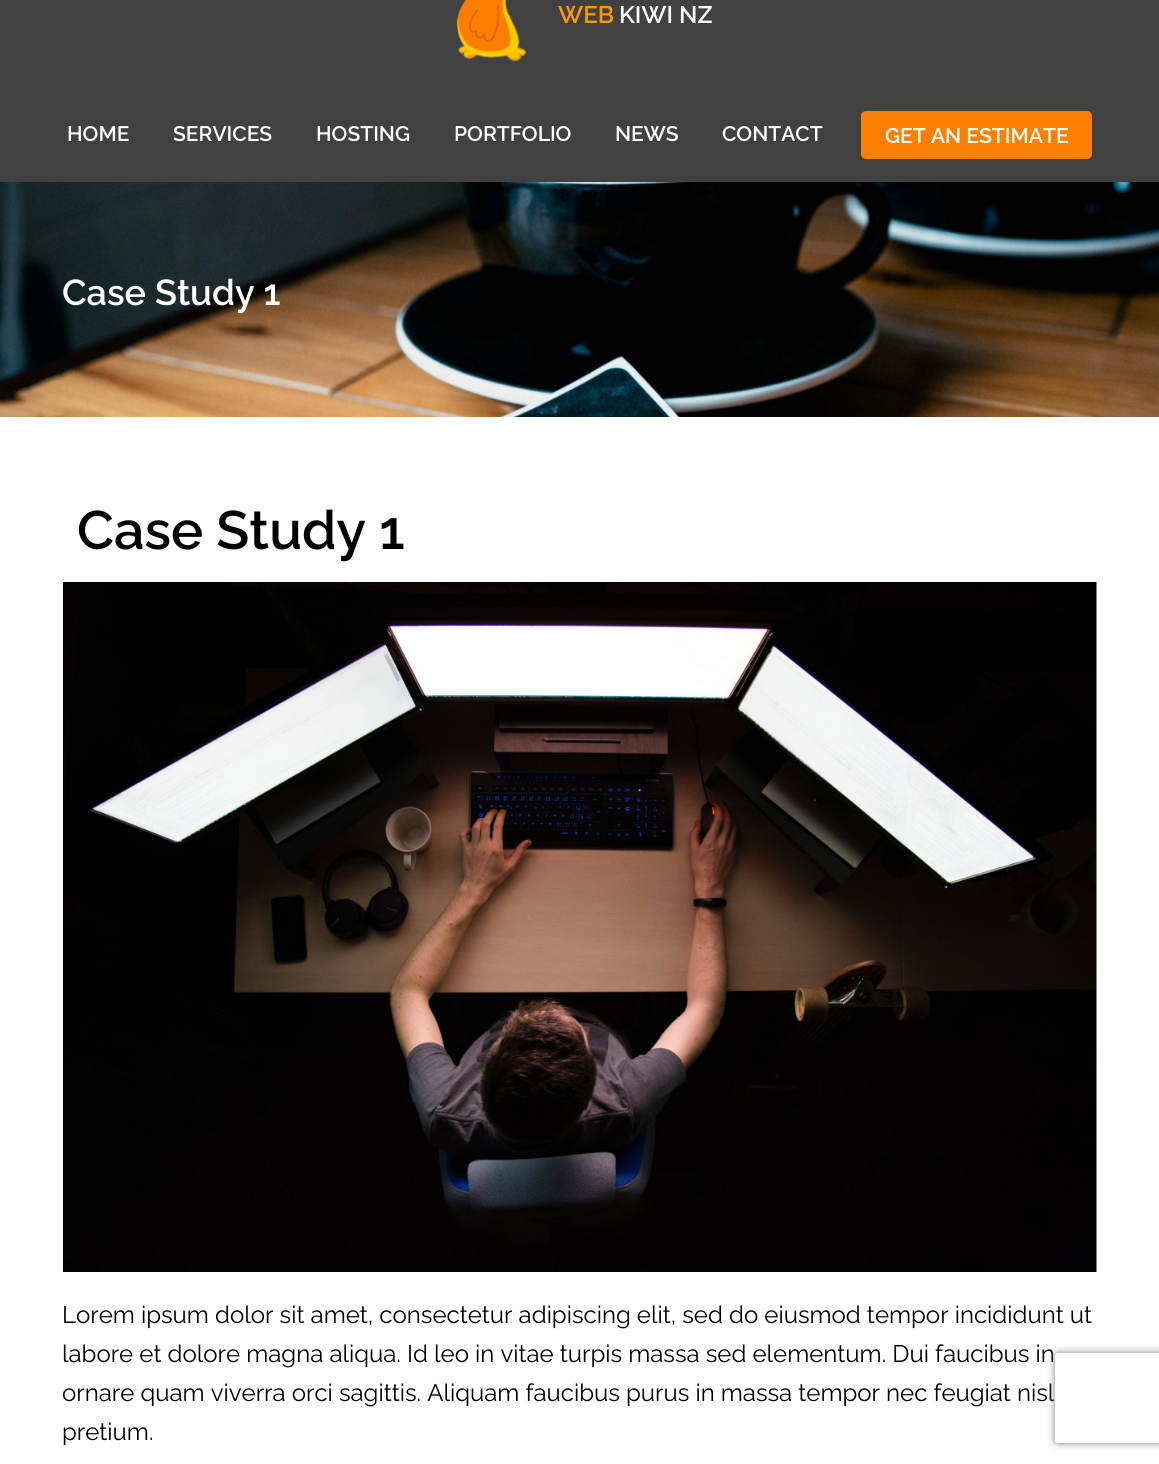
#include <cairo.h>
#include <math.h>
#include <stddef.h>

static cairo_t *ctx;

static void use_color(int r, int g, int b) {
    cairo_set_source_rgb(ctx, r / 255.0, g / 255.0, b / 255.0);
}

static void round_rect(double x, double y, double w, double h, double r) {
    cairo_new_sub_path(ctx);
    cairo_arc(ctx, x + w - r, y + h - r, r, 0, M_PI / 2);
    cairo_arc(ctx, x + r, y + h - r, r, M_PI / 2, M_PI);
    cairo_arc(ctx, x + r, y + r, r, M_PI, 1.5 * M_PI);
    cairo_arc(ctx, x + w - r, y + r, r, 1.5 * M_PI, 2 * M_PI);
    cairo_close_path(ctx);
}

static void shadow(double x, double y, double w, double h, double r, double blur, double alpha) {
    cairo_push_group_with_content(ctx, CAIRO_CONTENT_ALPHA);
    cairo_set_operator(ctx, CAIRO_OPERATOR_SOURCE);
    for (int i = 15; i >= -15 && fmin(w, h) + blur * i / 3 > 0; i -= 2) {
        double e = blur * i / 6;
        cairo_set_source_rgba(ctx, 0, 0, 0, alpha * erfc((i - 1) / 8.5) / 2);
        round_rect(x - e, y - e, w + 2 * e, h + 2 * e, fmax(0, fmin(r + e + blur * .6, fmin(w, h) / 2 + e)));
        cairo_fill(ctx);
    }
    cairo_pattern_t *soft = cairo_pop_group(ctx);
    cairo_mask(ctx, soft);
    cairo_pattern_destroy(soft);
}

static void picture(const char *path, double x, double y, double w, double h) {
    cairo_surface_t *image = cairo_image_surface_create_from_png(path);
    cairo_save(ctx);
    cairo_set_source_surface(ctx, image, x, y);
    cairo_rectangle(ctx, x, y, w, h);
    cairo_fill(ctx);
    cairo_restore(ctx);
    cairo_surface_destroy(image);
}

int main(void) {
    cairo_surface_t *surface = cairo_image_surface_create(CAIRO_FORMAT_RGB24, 1159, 1464);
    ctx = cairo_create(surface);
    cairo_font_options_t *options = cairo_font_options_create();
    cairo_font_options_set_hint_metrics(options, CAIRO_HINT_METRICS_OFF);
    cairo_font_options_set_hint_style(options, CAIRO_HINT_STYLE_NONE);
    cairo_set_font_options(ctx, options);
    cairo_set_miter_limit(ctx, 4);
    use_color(255, 255, 255);
    cairo_paint(ctx);
    use_color(65, 65, 65);
    cairo_rectangle(ctx, 0, 0, 1159, 182);
    cairo_fill(ctx);
    picture("img1.png", 456, 0, 71, 62);
    cairo_select_font_face(ctx, "Raleway SemiBold", CAIRO_FONT_SLANT_NORMAL, CAIRO_FONT_WEIGHT_NORMAL);
    cairo_set_font_size(ctx, 24);
    use_color(255, 153, 0);
    cairo_move_to(ctx, 558, 23);
    cairo_show_text(ctx, "WEB");
    use_color(255, 255, 255);
    cairo_move_to(ctx, 619, 23);
    cairo_show_text(ctx, "KIWI NZ");
    cairo_set_font_size(ctx, 21);
    cairo_move_to(ctx, 67, 141);
    cairo_show_text(ctx, "HOME");
    cairo_move_to(ctx, 173, 141);
    cairo_show_text(ctx, "SERVICES");
    cairo_move_to(ctx, 316, 141);
    cairo_show_text(ctx, "HOSTING");
    cairo_move_to(ctx, 454, 141);
    cairo_show_text(ctx, "PORTFOLIO");
    cairo_move_to(ctx, 615, 141);
    cairo_show_text(ctx, "NEWS");
    cairo_move_to(ctx, 722, 141);
    cairo_show_text(ctx, "CONTACT");
    use_color(255, 127, 0);
    round_rect(862, 112, 229, 46, 4);
    cairo_fill_preserve(ctx);
    cairo_stroke(ctx);
    use_color(255, 255, 255);
    cairo_move_to(ctx, 885, 143);
    cairo_show_text(ctx, "GET AN ESTIMATE");
    picture("img2.png", 0, 182, 1159, 235);
    cairo_set_font_size(ctx, 36);
    cairo_move_to(ctx, 62, 305);
    cairo_show_text(ctx, "Case Study 1");
    cairo_set_font_size(ctx, 54);
    use_color(0, 0, 0);
    cairo_move_to(ctx, 77, 549);
    cairo_show_text(ctx, "Case Study 1");
    picture("img3.png", 63, 582, 1034, 690);
    cairo_select_font_face(ctx, "Raleway", CAIRO_FONT_SLANT_NORMAL, CAIRO_FONT_WEIGHT_NORMAL);
    cairo_set_font_size(ctx, 24);
    cairo_move_to(ctx, 62, 1323);
    cairo_show_text(ctx, "Lorem ipsum dolor sit amet, consectetur adipiscing elit, sed do eiusmod tempor incididunt ut");
    cairo_move_to(ctx, 62, 1362);
    cairo_show_text(ctx, "labore et dolore magna aliqua. Id leo in vitae turpis massa sed elementum. Dui faucibus in");
    cairo_move_to(ctx, 62, 1401);
    cairo_show_text(ctx, "ornare quam viverra orci sagittis. Aliquam faucibus purus in massa tempor nec feugiat nisl");
    cairo_move_to(ctx, 62, 1440);
    cairo_show_text(ctx, "pretium.");
    cairo_save(ctx);
    cairo_set_fill_rule(ctx, CAIRO_FILL_RULE_EVEN_ODD);
    cairo_new_path(ctx);
    cairo_move_to(ctx, 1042, 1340);
    cairo_line_to(ctx, 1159, 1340);
    cairo_line_to(ctx, 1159, 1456);
    cairo_line_to(ctx, 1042, 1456);
    cairo_close_path(ctx);
    cairo_move_to(ctx, 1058, 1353);
    cairo_line_to(ctx, 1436, 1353);
    cairo_curve_to(ctx, 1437.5, 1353, 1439, 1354.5, 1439, 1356);
    cairo_line_to(ctx, 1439, 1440);
    cairo_curve_to(ctx, 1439, 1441.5, 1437.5, 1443, 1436, 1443);
    cairo_line_to(ctx, 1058, 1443);
    cairo_curve_to(ctx, 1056.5, 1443, 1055, 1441.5, 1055, 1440);
    cairo_line_to(ctx, 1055, 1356);
    cairo_curve_to(ctx, 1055, 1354.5, 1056.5, 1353, 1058, 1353);
    cairo_close_path(ctx);
    cairo_clip(ctx);
    use_color(128, 128, 128);
    shadow(1055, 1353, 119, 90, 3, 4, 1);
    cairo_restore(ctx);
    cairo_surface_write_to_png(surface, "result.png");
    cairo_font_options_destroy(options);
    cairo_destroy(ctx);
    cairo_surface_destroy(surface);
    return 0;
}
